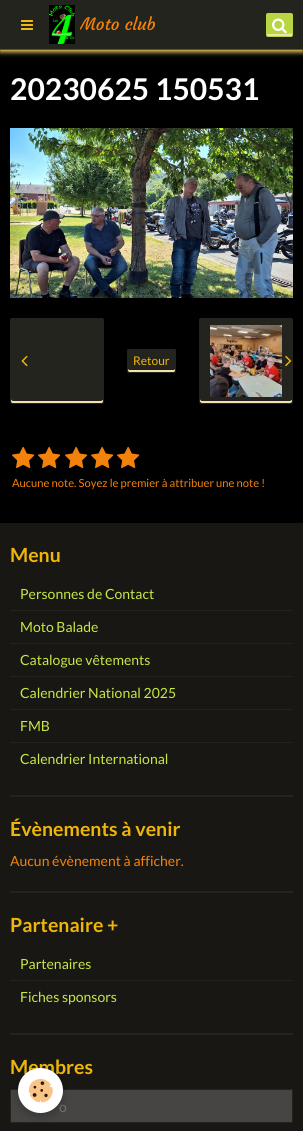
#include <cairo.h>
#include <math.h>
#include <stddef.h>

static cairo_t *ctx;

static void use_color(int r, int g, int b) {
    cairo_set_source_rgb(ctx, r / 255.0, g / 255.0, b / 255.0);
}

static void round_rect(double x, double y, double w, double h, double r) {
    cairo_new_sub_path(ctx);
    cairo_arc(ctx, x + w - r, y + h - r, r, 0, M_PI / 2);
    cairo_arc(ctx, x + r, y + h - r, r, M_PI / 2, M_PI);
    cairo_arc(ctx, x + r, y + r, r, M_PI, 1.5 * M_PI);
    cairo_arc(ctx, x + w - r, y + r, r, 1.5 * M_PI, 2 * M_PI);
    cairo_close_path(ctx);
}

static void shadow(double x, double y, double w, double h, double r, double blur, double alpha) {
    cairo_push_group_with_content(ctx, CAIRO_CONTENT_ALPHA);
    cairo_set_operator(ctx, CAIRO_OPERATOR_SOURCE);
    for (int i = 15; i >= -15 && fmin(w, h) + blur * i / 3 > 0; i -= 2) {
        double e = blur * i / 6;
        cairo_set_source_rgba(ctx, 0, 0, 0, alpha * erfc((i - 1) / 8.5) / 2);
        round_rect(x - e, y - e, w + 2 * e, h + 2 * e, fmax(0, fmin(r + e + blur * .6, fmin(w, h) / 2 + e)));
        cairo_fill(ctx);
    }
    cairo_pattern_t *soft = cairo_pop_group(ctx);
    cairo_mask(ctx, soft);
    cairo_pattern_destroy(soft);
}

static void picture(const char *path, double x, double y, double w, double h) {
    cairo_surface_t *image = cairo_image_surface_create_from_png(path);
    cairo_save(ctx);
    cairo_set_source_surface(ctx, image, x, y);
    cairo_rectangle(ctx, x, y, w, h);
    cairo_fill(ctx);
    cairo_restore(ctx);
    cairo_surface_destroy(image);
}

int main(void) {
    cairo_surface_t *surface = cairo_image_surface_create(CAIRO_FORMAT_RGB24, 303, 1131);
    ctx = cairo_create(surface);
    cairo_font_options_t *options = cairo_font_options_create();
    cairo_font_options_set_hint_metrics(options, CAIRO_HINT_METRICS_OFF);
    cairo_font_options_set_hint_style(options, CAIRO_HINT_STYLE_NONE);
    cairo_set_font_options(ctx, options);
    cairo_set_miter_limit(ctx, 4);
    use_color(24, 23, 20);
    cairo_paint(ctx);
    use_color(0, 0, 0);
    cairo_rectangle(ctx, 0, 50, 303, 473);
    cairo_fill(ctx);
    use_color(255, 217, 102);
    shadow(0, 2, 303, 50, 0, 2.5, 1);
    use_color(36, 36, 31);
    cairo_rectangle(ctx, 0, 0, 303, 49);
    cairo_fill(ctx);
    use_color(80, 80, 76);
    cairo_rectangle(ctx, 0, 49, 303, 1);
    cairo_fill(ctx);
    picture("img1.png", 21, 20, 12, 10);
    picture("img2.png", 49, 5, 26, 39);
    cairo_save(ctx);
    cairo_rectangle(ctx, 80, 13, 75, 23);
    cairo_clip(ctx);
    cairo_select_font_face(ctx, "Courgette", CAIRO_FONT_SLANT_NORMAL, CAIRO_FONT_WEIGHT_NORMAL);
    cairo_set_font_size(ctx, 17);
    use_color(243, 130, 12);
    cairo_move_to(ctx, 80, 30);
    cairo_show_text(ctx, "Moto club");
    cairo_restore(ctx);
    use_color(184, 214, 63);
    round_rect(266, 13, 27, 24, 2);
    cairo_fill(ctx);
    use_color(243, 225, 175);
    cairo_set_fill_rule(ctx, CAIRO_FILL_RULE_EVEN_ODD);
    cairo_new_path(ctx);
    cairo_move_to(ctx, 267, 34);
    cairo_curve_to(ctx, 267, 37, 268.5, 36, 272, 36);
    cairo_line_to(ctx, 287, 36);
    cairo_curve_to(ctx, 291.5, 36, 292, 37, 292, 33);
    cairo_curve_to(ctx, 291, 34.5, 269.5, 34, 267, 34);
    cairo_close_path(ctx);
    cairo_move_to(ctx, 292, 16);
    cairo_line_to(ctx, 292, 15);
    cairo_close_path(ctx);
    cairo_fill(ctx);
    picture("img3.png", 272, 18, 15, 16);
    cairo_select_font_face(ctx, "Lato", CAIRO_FONT_SLANT_NORMAL, CAIRO_FONT_WEIGHT_BOLD);
    cairo_set_font_size(ctx, 30);
    use_color(255, 255, 255);
    cairo_move_to(ctx, 10, 100);
    cairo_show_text(ctx, "20230625 150531");
    picture("img4.png", 10, 128, 283, 170);
    use_color(36, 36, 31);
    round_rect(10, 318, 94, 86, 2.5);
    cairo_fill(ctx);
    use_color(243, 225, 175);
    cairo_set_fill_rule(ctx, CAIRO_FILL_RULE_WINDING);
    cairo_new_path(ctx);
    cairo_move_to(ctx, 11, 399);
    cairo_line_to(ctx, 11, 402);
    cairo_curve_to(ctx, 11, 402, 12, 403, 12, 403);
    cairo_line_to(ctx, 102, 403);
    cairo_curve_to(ctx, 102, 403, 103, 402, 103, 402);
    cairo_line_to(ctx, 103, 399);
    cairo_line_to(ctx, 103, 400);
    cairo_line_to(ctx, 101, 401);
    cairo_line_to(ctx, 13, 401);
    cairo_curve_to(ctx, 12, 401, 11, 400, 11, 399);
    cairo_close_path(ctx);
    cairo_fill(ctx);
    round_rect(10.5, 318.5, 93, 85, 2);
    use_color(36, 36, 31);
    cairo_set_line_width(ctx, 1);
    cairo_stroke(ctx);
    picture("img5.png", 21, 355, 7, 12);
    round_rect(127, 349, 49, 24, 2);
    cairo_fill(ctx);
    use_color(243, 225, 175);
    cairo_new_path(ctx);
    cairo_move_to(ctx, 128, 369);
    cairo_curve_to(ctx, 128, 374, 130, 372, 136, 372);
    cairo_line_to(ctx, 166, 372);
    cairo_curve_to(ctx, 173, 372, 175, 374, 175, 369);
    cairo_line_to(ctx, 174, 370);
    cairo_line_to(ctx, 129, 370);
    cairo_close_path(ctx);
    cairo_fill(ctx);
    round_rect(127.5, 349.5, 48, 23, 1.5);
    use_color(36, 36, 31);
    cairo_stroke(ctx);
    cairo_select_font_face(ctx, "Lato", CAIRO_FONT_SLANT_NORMAL, CAIRO_FONT_WEIGHT_NORMAL);
    cairo_set_font_size(ctx, 12);
    use_color(239, 182, 9);
    cairo_move_to(ctx, 133, 365);
    cairo_show_text(ctx, "Retour");
    use_color(36, 36, 31);
    round_rect(199, 318, 94, 86, 2.5);
    cairo_fill(ctx);
    use_color(243, 225, 175);
    cairo_new_path(ctx);
    cairo_move_to(ctx, 200, 399);
    cairo_line_to(ctx, 200, 402);
    cairo_curve_to(ctx, 200, 402, 201, 403, 202, 403);
    cairo_line_to(ctx, 290, 403);
    cairo_curve_to(ctx, 291, 403, 292, 402, 292, 402);
    cairo_line_to(ctx, 292, 399);
    cairo_line_to(ctx, 292, 400);
    cairo_line_to(ctx, 290, 401);
    cairo_line_to(ctx, 202, 401);
    cairo_curve_to(ctx, 201, 401, 200, 400, 200, 399);
    cairo_close_path(ctx);
    cairo_fill(ctx);
    round_rect(199.5, 318.5, 93, 85, 2);
    use_color(36, 36, 31);
    cairo_stroke(ctx);
    picture("img6.png", 210, 325, 72, 72);
    picture("img7.png", 285, 355, 7, 12);
    picture("img8.png", 12, 446, 23, 23);
    picture("img8.png", 38, 446, 23, 23);
    picture("img8.png", 65, 446, 23, 23);
    picture("img8.png", 91, 446, 23, 23);
    picture("img8.png", 117, 446, 23, 23);
    cairo_set_font_size(ctx, 11.2);
    use_color(243, 130, 12);
    cairo_move_to(ctx, 12, 487);
    cairo_show_text(ctx, "Aucune note. Soyez le premier à attribuer une note !");
    use_color(37, 35, 31);
    cairo_rectangle(ctx, 10, 795, 283, 2);
    cairo_fill(ctx);
    cairo_select_font_face(ctx, "Lato", CAIRO_FONT_SLANT_NORMAL, CAIRO_FONT_WEIGHT_BOLD);
    cairo_set_font_size(ctx, 19.5);
    use_color(239, 182, 9);
    cairo_move_to(ctx, 10, 562);
    cairo_show_text(ctx, "Menu");
    use_color(37, 35, 31);
    cairo_rectangle(ctx, 10, 610, 283, 1);
    cairo_fill(ctx);
    cairo_select_font_face(ctx, "Lato", CAIRO_FONT_SLANT_NORMAL, CAIRO_FONT_WEIGHT_NORMAL);
    cairo_set_font_size(ctx, 14);
    use_color(199, 231, 68);
    cairo_move_to(ctx, 20, 599);
    cairo_show_text(ctx, "Personnes de Contact");
    use_color(37, 35, 31);
    cairo_rectangle(ctx, 10, 643, 283, 1);
    cairo_fill(ctx);
    use_color(199, 231, 68);
    cairo_move_to(ctx, 20, 632);
    cairo_show_text(ctx, "Moto Balade");
    use_color(37, 35, 31);
    cairo_rectangle(ctx, 10, 676, 283, 1);
    cairo_fill(ctx);
    use_color(199, 231, 68);
    cairo_move_to(ctx, 20, 665);
    cairo_show_text(ctx, "Catalogue vêtements");
    use_color(37, 35, 31);
    cairo_rectangle(ctx, 10, 709, 283, 1);
    cairo_fill(ctx);
    use_color(199, 231, 68);
    cairo_move_to(ctx, 20, 698);
    cairo_show_text(ctx, "Calendrier National 2025");
    use_color(37, 35, 31);
    cairo_rectangle(ctx, 10, 742, 283, 1);
    cairo_fill(ctx);
    use_color(199, 231, 68);
    cairo_move_to(ctx, 20, 731);
    cairo_show_text(ctx, "FMB");
    cairo_move_to(ctx, 20, 764);
    cairo_show_text(ctx, "Calendrier International");
    use_color(37, 35, 31);
    cairo_rectangle(ctx, 10, 891, 283, 2);
    cairo_fill(ctx);
    cairo_select_font_face(ctx, "Lato", CAIRO_FONT_SLANT_NORMAL, CAIRO_FONT_WEIGHT_BOLD);
    cairo_set_font_size(ctx, 19.5);
    use_color(239, 182, 9);
    cairo_move_to(ctx, 10, 836);
    cairo_show_text(ctx, "Évènements à venir");
    cairo_select_font_face(ctx, "Lato", CAIRO_FONT_SLANT_NORMAL, CAIRO_FONT_WEIGHT_NORMAL);
    cairo_set_font_size(ctx, 14);
    use_color(243, 130, 12);
    cairo_move_to(ctx, 10, 866);
    cairo_show_text(ctx, "Aucun évènement à afficher.");
    use_color(37, 35, 31);
    cairo_rectangle(ctx, 10, 1033, 283, 2);
    cairo_fill(ctx);
    cairo_select_font_face(ctx, "Lato", CAIRO_FONT_SLANT_NORMAL, CAIRO_FONT_WEIGHT_BOLD);
    cairo_set_font_size(ctx, 19.5);
    use_color(239, 182, 9);
    cairo_move_to(ctx, 10, 932);
    cairo_show_text(ctx, "Partenaire +");
    use_color(37, 35, 31);
    cairo_rectangle(ctx, 10, 980, 283, 1);
    cairo_fill(ctx);
    cairo_select_font_face(ctx, "Lato", CAIRO_FONT_SLANT_NORMAL, CAIRO_FONT_WEIGHT_NORMAL);
    cairo_set_font_size(ctx, 14);
    use_color(199, 231, 68);
    cairo_move_to(ctx, 20, 969);
    cairo_show_text(ctx, "Partenaires");
    cairo_move_to(ctx, 20, 1002);
    cairo_show_text(ctx, "Fiches sponsors");
    cairo_select_font_face(ctx, "Lato", CAIRO_FONT_SLANT_NORMAL, CAIRO_FONT_WEIGHT_BOLD);
    cairo_set_font_size(ctx, 19.5);
    use_color(239, 182, 9);
    cairo_move_to(ctx, 10, 1074);
    cairo_show_text(ctx, "Membres");
    use_color(70, 69, 67);
    cairo_rectangle(ctx, 10.5, 1089.5, 282, 33);
    cairo_fill_preserve(ctx);
    use_color(37, 35, 31);
    cairo_stroke(ctx);
    cairo_select_font_face(ctx, "Lato", CAIRO_FONT_SLANT_NORMAL, CAIRO_FONT_WEIGHT_NORMAL);
    cairo_set_font_size(ctx, 14);
    use_color(117, 118, 112);
    cairo_move_to(ctx, 59, 1112);
    cairo_show_text(ctx, "o");
    use_color(0, 0, 0);
    shadow(18, 1071, 45, 45, 22.5, 5, 0.24);
    use_color(255, 255, 255);
    cairo_arc(ctx, 40.5, 1090.5, 22.5, 0, 2 * M_PI);
    cairo_fill(ctx);
    picture("img9.png", 28, 1078, 25, 25);
    cairo_surface_write_to_png(surface, "result.png");
    cairo_font_options_destroy(options);
    cairo_destroy(ctx);
    cairo_surface_destroy(surface);
    return 0;
}
